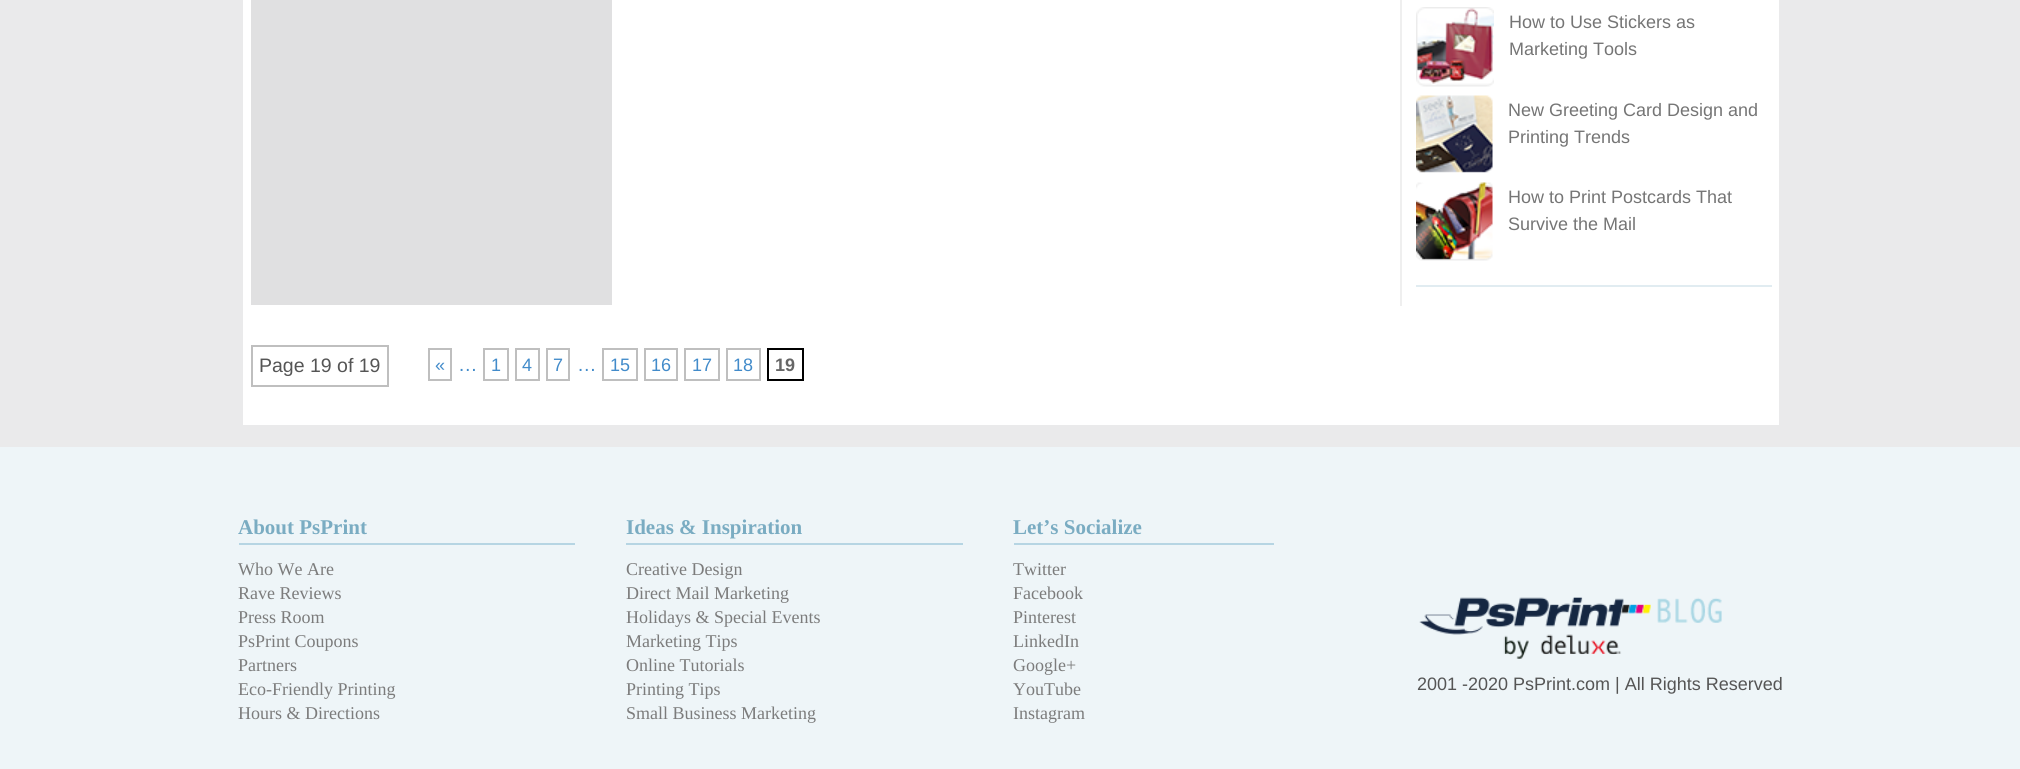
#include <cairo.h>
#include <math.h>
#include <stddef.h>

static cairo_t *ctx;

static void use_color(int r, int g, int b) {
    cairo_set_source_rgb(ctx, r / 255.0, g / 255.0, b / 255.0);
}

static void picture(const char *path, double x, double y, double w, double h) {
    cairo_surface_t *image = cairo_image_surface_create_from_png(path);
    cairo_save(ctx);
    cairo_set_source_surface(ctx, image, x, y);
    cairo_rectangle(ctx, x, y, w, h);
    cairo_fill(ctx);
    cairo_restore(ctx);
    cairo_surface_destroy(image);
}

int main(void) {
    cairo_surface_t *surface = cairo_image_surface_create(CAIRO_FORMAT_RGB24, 2020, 769);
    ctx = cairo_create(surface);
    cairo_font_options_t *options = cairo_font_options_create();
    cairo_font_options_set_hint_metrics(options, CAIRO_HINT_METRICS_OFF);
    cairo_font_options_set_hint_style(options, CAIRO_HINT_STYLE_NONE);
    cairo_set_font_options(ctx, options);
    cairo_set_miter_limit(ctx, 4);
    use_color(234, 234, 235);
    cairo_paint(ctx);
    use_color(255, 255, 255);
    cairo_rectangle(ctx, 243, 0, 1536, 425);
    cairo_fill(ctx);
    use_color(239, 239, 239);
    cairo_rectangle(ctx, 1400, 0, 2, 306);
    cairo_fill(ctx);
    use_color(225, 236, 241);
    cairo_rectangle(ctx, 1416, 285, 356, 2);
    cairo_fill(ctx);
    picture("img1.png", 1416, 7, 78, 80);
    cairo_select_font_face(ctx, "Liberation Sans", CAIRO_FONT_SLANT_NORMAL, CAIRO_FONT_WEIGHT_NORMAL);
    cairo_set_font_size(ctx, 18);
    use_color(117, 117, 117);
    cairo_move_to(ctx, 1509, 28);
    cairo_show_text(ctx, "How to Use Stickers as");
    cairo_move_to(ctx, 1509, 55);
    cairo_show_text(ctx, "Marketing Tools");
    picture("img2.png", 1416, 95, 77, 78);
    cairo_move_to(ctx, 1508, 116);
    cairo_show_text(ctx, "New Greeting Card Design and");
    cairo_move_to(ctx, 1508, 143);
    cairo_show_text(ctx, "Printing Trends");
    picture("img3.png", 1416, 182, 77, 79);
    cairo_move_to(ctx, 1508, 203);
    cairo_show_text(ctx, "How to Print Postcards That");
    cairo_move_to(ctx, 1508, 230);
    cairo_show_text(ctx, "Survive the Mail");
    use_color(224, 224, 225);
    cairo_rectangle(ctx, 251, 0, 361, 305);
    cairo_fill(ctx);
    cairo_rectangle(ctx, 252, 346, 136, 40);
    use_color(191, 191, 191);
    cairo_stroke(ctx);
    cairo_set_font_size(ctx, 19.5);
    use_color(85, 85, 85);
    cairo_move_to(ctx, 259, 372);
    cairo_show_text(ctx, "Page 19 of 19");
    cairo_rectangle(ctx, 429, 349, 22, 31);
    use_color(191, 191, 191);
    cairo_stroke(ctx);
    cairo_set_font_size(ctx, 18);
    use_color(66, 139, 202);
    cairo_move_to(ctx, 435, 371);
    cairo_show_text(ctx, "«");
    cairo_set_font_size(ctx, 19.5);
    cairo_move_to(ctx, 458, 371);
    cairo_show_text(ctx, "…");
    cairo_rectangle(ctx, 484, 349, 24, 31);
    use_color(191, 191, 191);
    cairo_stroke(ctx);
    cairo_set_font_size(ctx, 18);
    use_color(66, 139, 202);
    cairo_move_to(ctx, 491, 371);
    cairo_show_text(ctx, "1");
    cairo_rectangle(ctx, 516, 349, 23, 31);
    use_color(191, 191, 191);
    cairo_stroke(ctx);
    use_color(66, 139, 202);
    cairo_move_to(ctx, 522, 371);
    cairo_show_text(ctx, "4");
    cairo_rectangle(ctx, 547, 349, 22, 31);
    use_color(191, 191, 191);
    cairo_stroke(ctx);
    use_color(66, 139, 202);
    cairo_move_to(ctx, 553, 371);
    cairo_show_text(ctx, "7");
    cairo_set_font_size(ctx, 19.5);
    cairo_move_to(ctx, 577, 371);
    cairo_show_text(ctx, "…");
    cairo_rectangle(ctx, 603, 349, 34, 31);
    use_color(191, 191, 191);
    cairo_stroke(ctx);
    cairo_set_font_size(ctx, 18);
    use_color(66, 139, 202);
    cairo_move_to(ctx, 610, 371);
    cairo_show_text(ctx, "15");
    cairo_rectangle(ctx, 645, 349, 32, 31);
    use_color(191, 191, 191);
    cairo_stroke(ctx);
    use_color(66, 139, 202);
    cairo_move_to(ctx, 651, 371);
    cairo_show_text(ctx, "16");
    cairo_rectangle(ctx, 685, 349, 34, 31);
    use_color(191, 191, 191);
    cairo_stroke(ctx);
    use_color(66, 139, 202);
    cairo_move_to(ctx, 692, 371);
    cairo_show_text(ctx, "17");
    cairo_rectangle(ctx, 727, 349, 33, 31);
    use_color(191, 191, 191);
    cairo_stroke(ctx);
    use_color(66, 139, 202);
    cairo_move_to(ctx, 733, 371);
    cairo_show_text(ctx, "18");
    cairo_rectangle(ctx, 768, 349, 35, 31);
    use_color(0, 0, 0);
    cairo_stroke(ctx);
    cairo_select_font_face(ctx, "Liberation Sans", CAIRO_FONT_SLANT_NORMAL, CAIRO_FONT_WEIGHT_BOLD);
    use_color(102, 102, 102);
    cairo_move_to(ctx, 775, 371);
    cairo_show_text(ctx, "19");
    use_color(238, 245, 248);
    cairo_rectangle(ctx, 0, 447, 2020, 322);
    cairo_fill(ctx);
    use_color(182, 213, 227);
    cairo_rectangle(ctx, 239, 543, 336, 2);
    cairo_fill(ctx);
    cairo_select_font_face(ctx, "Liberation Serif", CAIRO_FONT_SLANT_NORMAL, CAIRO_FONT_WEIGHT_BOLD);
    cairo_set_font_size(ctx, 21);
    use_color(122, 172, 194);
    cairo_move_to(ctx, 238, 534);
    cairo_show_text(ctx, "About PsPrint");
    cairo_select_font_face(ctx, "Liberation Serif", CAIRO_FONT_SLANT_NORMAL, CAIRO_FONT_WEIGHT_NORMAL);
    cairo_set_font_size(ctx, 18);
    use_color(124, 124, 124);
    cairo_move_to(ctx, 238, 575);
    cairo_show_text(ctx, "Who We Are");
    cairo_move_to(ctx, 238, 599);
    cairo_show_text(ctx, "Rave Reviews");
    cairo_move_to(ctx, 238, 623);
    cairo_show_text(ctx, "Press Room");
    cairo_move_to(ctx, 238, 647);
    cairo_show_text(ctx, "PsPrint Coupons");
    cairo_move_to(ctx, 238, 671);
    cairo_show_text(ctx, "Partners");
    cairo_move_to(ctx, 238, 695);
    cairo_show_text(ctx, "Eco-Friendly Printing");
    cairo_move_to(ctx, 238, 719);
    cairo_show_text(ctx, "Hours & Directions");
    use_color(182, 213, 227);
    cairo_rectangle(ctx, 626, 543, 337, 2);
    cairo_fill(ctx);
    cairo_select_font_face(ctx, "Liberation Serif", CAIRO_FONT_SLANT_NORMAL, CAIRO_FONT_WEIGHT_BOLD);
    cairo_set_font_size(ctx, 21);
    use_color(122, 172, 194);
    cairo_move_to(ctx, 626, 534);
    cairo_show_text(ctx, "Ideas & Inspiration");
    cairo_select_font_face(ctx, "Liberation Serif", CAIRO_FONT_SLANT_NORMAL, CAIRO_FONT_WEIGHT_NORMAL);
    cairo_set_font_size(ctx, 18);
    use_color(124, 124, 124);
    cairo_move_to(ctx, 626, 575);
    cairo_show_text(ctx, "Creative Design");
    cairo_move_to(ctx, 626, 599);
    cairo_show_text(ctx, "Direct Mail Marketing");
    cairo_move_to(ctx, 626, 623);
    cairo_show_text(ctx, "Holidays & Special Events");
    cairo_move_to(ctx, 626, 647);
    cairo_show_text(ctx, "Marketing Tips");
    cairo_move_to(ctx, 626, 671);
    cairo_show_text(ctx, "Online Tutorials");
    cairo_move_to(ctx, 626, 695);
    cairo_show_text(ctx, "Printing Tips");
    cairo_move_to(ctx, 626, 719);
    cairo_show_text(ctx, "Small Business Marketing");
    use_color(182, 213, 227);
    cairo_rectangle(ctx, 1014, 543, 260, 2);
    cairo_fill(ctx);
    cairo_select_font_face(ctx, "Liberation Serif", CAIRO_FONT_SLANT_NORMAL, CAIRO_FONT_WEIGHT_BOLD);
    cairo_set_font_size(ctx, 21);
    use_color(122, 172, 194);
    cairo_move_to(ctx, 1013, 534);
    cairo_show_text(ctx, "Let’s Socialize");
    cairo_select_font_face(ctx, "Liberation Serif", CAIRO_FONT_SLANT_NORMAL, CAIRO_FONT_WEIGHT_NORMAL);
    cairo_set_font_size(ctx, 18);
    use_color(124, 124, 124);
    cairo_move_to(ctx, 1013, 575);
    cairo_show_text(ctx, "Twitter");
    cairo_move_to(ctx, 1013, 599);
    cairo_show_text(ctx, "Facebook");
    cairo_move_to(ctx, 1013, 623);
    cairo_show_text(ctx, "Pinterest");
    cairo_move_to(ctx, 1013, 647);
    cairo_show_text(ctx, "LinkedIn");
    cairo_move_to(ctx, 1013, 671);
    cairo_show_text(ctx, "Google+");
    cairo_move_to(ctx, 1013, 695);
    cairo_show_text(ctx, "YouTube");
    cairo_move_to(ctx, 1013, 719);
    cairo_show_text(ctx, "Instagram");
    picture("img4.png", 1419, 597, 303, 62);
    cairo_select_font_face(ctx, "Liberation Sans", CAIRO_FONT_SLANT_NORMAL, CAIRO_FONT_WEIGHT_NORMAL);
    use_color(85, 85, 85);
    cairo_move_to(ctx, 1417, 690);
    cairo_show_text(ctx, "2001 -2020 PsPrint.com | All Rights Reserved");
    cairo_surface_write_to_png(surface, "result.png");
    cairo_font_options_destroy(options);
    cairo_destroy(ctx);
    cairo_surface_destroy(surface);
    return 0;
}
